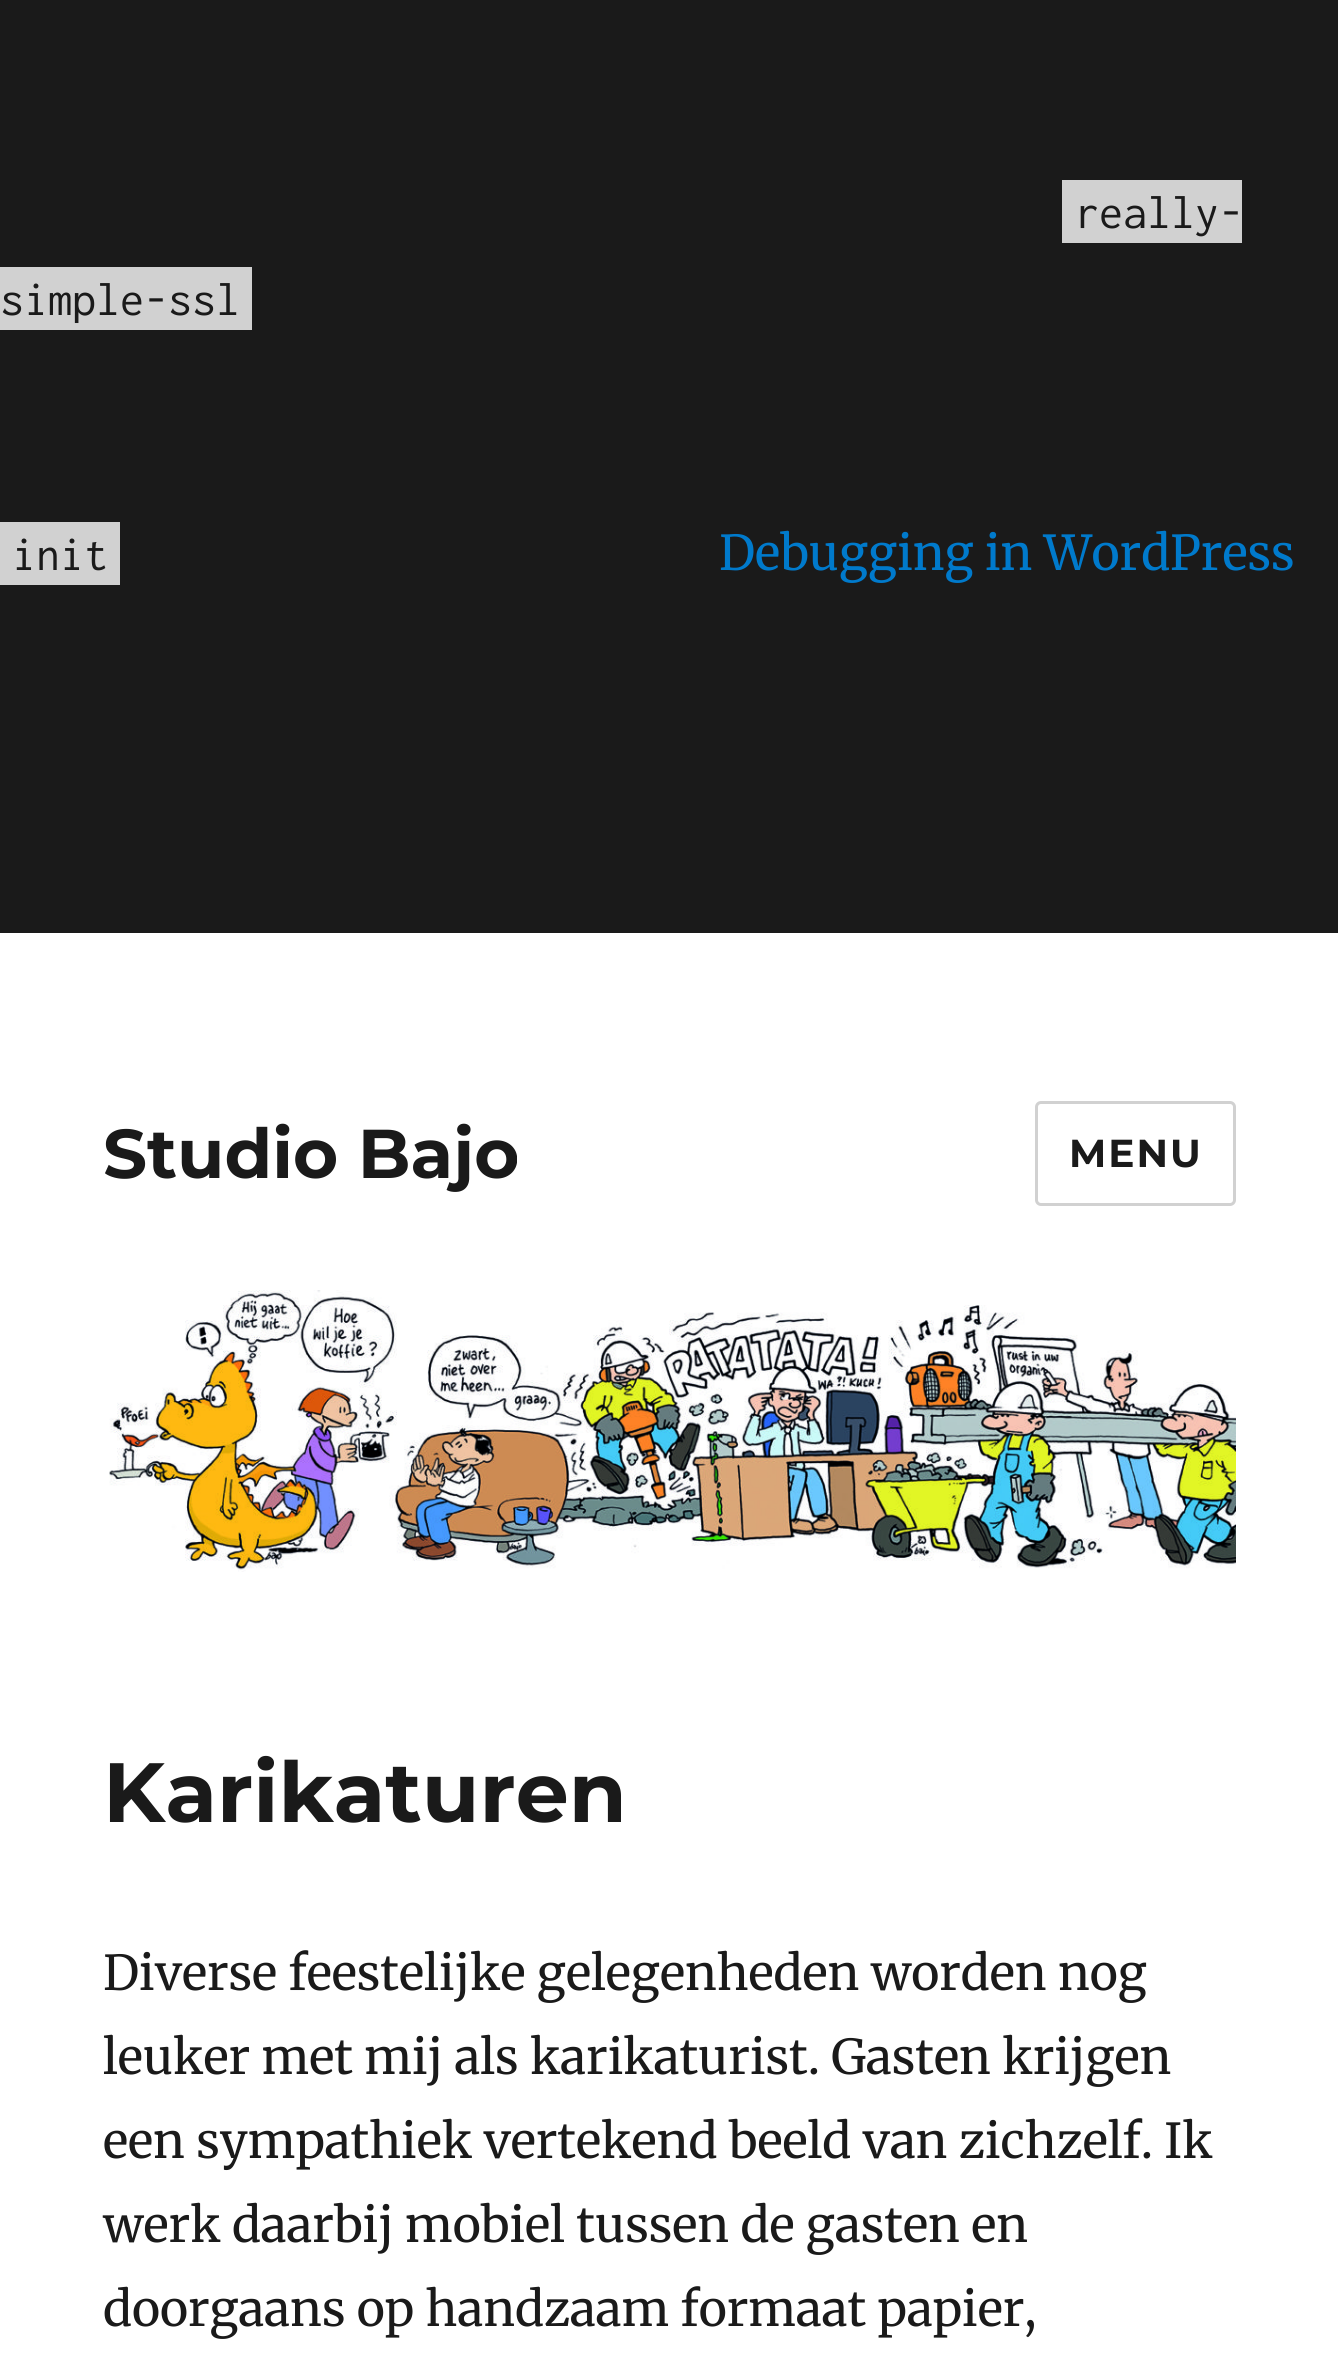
#include <cairo.h>
#include <math.h>
#include <stddef.h>

static cairo_t *ctx;

static void use_color(int r, int g, int b) {
    cairo_set_source_rgb(ctx, r / 255.0, g / 255.0, b / 255.0);
}

static void spaced_text(double x, double y, const char *s, double letter, double word) {
    cairo_move_to(ctx, x, y);
    while (*s) {
        char ch[5] = {0};
        int n = 0;
        do ch[n++] = *s++; while ((*s & 0xC0) == 0x80);
        cairo_show_text(ctx, ch);
        cairo_rel_move_to(ctx, letter + word * (*ch == ' '), 0);
    }
}

static void round_rect(double x, double y, double w, double h, double r) {
    cairo_new_sub_path(ctx);
    cairo_arc(ctx, x + w - r, y + h - r, r, 0, M_PI / 2);
    cairo_arc(ctx, x + r, y + h - r, r, M_PI / 2, M_PI);
    cairo_arc(ctx, x + r, y + r, r, M_PI, 1.5 * M_PI);
    cairo_arc(ctx, x + w - r, y + r, r, 1.5 * M_PI, 2 * M_PI);
    cairo_close_path(ctx);
}

static void picture(const char *path, double x, double y, double w, double h) {
    cairo_surface_t *image = cairo_image_surface_create_from_png(path);
    cairo_save(ctx);
    cairo_set_source_surface(ctx, image, x, y);
    cairo_rectangle(ctx, x, y, w, h);
    cairo_fill(ctx);
    cairo_restore(ctx);
    cairo_surface_destroy(image);
}

int main(void) {
    cairo_surface_t *surface = cairo_image_surface_create(CAIRO_FORMAT_RGB24, 1338, 2360);
    ctx = cairo_create(surface);
    cairo_font_options_t *options = cairo_font_options_create();
    cairo_font_options_set_hint_metrics(options, CAIRO_HINT_METRICS_OFF);
    cairo_font_options_set_hint_style(options, CAIRO_HINT_STYLE_NONE);
    cairo_set_font_options(ctx, options);
    cairo_set_miter_limit(ctx, 4);
    use_color(26, 26, 26);
    cairo_paint(ctx);
    use_color(209, 209, 209);
    cairo_rectangle(ctx, 1062, 180, 180, 63);
    cairo_fill(ctx);
    cairo_select_font_face(ctx, "Inconsolata", CAIRO_FONT_SLANT_NORMAL, CAIRO_FONT_WEIGHT_NORMAL);
    cairo_set_font_size(ctx, 48);
    use_color(26, 26, 26);
    cairo_move_to(ctx, 1075, 228);
    cairo_show_text(ctx, "really-");
    use_color(209, 209, 209);
    cairo_rectangle(ctx, 0, 267, 252, 63);
    cairo_fill(ctx);
    use_color(26, 26, 26);
    cairo_move_to(ctx, 0, 315);
    cairo_show_text(ctx, "simple-ssl");
    use_color(209, 209, 209);
    cairo_rectangle(ctx, 0, 522, 120, 63);
    cairo_fill(ctx);
    use_color(26, 26, 26);
    cairo_move_to(ctx, 12, 570);
    cairo_show_text(ctx, "init");
    cairo_select_font_face(ctx, "Merriweather", CAIRO_FONT_SLANT_NORMAL, CAIRO_FONT_WEIGHT_NORMAL);
    use_color(0, 122, 204);
    cairo_move_to(ctx, 719, 570);
    cairo_show_text(ctx, "Debugging in WordPress");
    use_color(255, 255, 255);
    cairo_rectangle(ctx, 0, 933, 1338, 1427);
    cairo_fill(ctx);
    cairo_select_font_face(ctx, "Montserrat", CAIRO_FONT_SLANT_NORMAL, CAIRO_FONT_WEIGHT_BOLD);
    cairo_set_font_size(ctx, 69);
    use_color(26, 26, 26);
    cairo_move_to(ctx, 103, 1178);
    cairo_show_text(ctx, "Studio Bajo");
    round_rect(1036.5, 1102.5, 198, 102, 4.5);
    use_color(209, 209, 209);
    cairo_set_line_width(ctx, 3);
    cairo_stroke(ctx);
    cairo_set_font_size(ctx, 39);
    use_color(26, 26, 26);
    spaced_text(1069, 1167, "MENU", 2, 0);
    picture("img1.png", 109, 1290, 1127, 282);
    cairo_set_font_size(ctx, 84);
    cairo_move_to(ctx, 103, 1822);
    cairo_show_text(ctx, "Karikaturen");
    cairo_select_font_face(ctx, "Merriweather", CAIRO_FONT_SLANT_NORMAL, CAIRO_FONT_WEIGHT_NORMAL);
    cairo_set_font_size(ctx, 48);
    cairo_move_to(ctx, 103, 1990);
    cairo_show_text(ctx, "Diverse feestelijke gelegenheden worden nog");
    cairo_move_to(ctx, 103, 2074);
    cairo_show_text(ctx, "leuker met mij als karikaturist. Gasten krijgen");
    cairo_move_to(ctx, 103, 2158);
    cairo_show_text(ctx, "een sympathiek vertekend beeld van zichzelf. Ik");
    cairo_move_to(ctx, 103, 2242);
    cairo_show_text(ctx, "werk daarbij mobiel tussen de gasten en");
    cairo_move_to(ctx, 103, 2326);
    cairo_show_text(ctx, "doorgaans op handzaam formaat papier,");
    cairo_surface_write_to_png(surface, "result.png");
    cairo_font_options_destroy(options);
    cairo_destroy(ctx);
    cairo_surface_destroy(surface);
    return 0;
}
